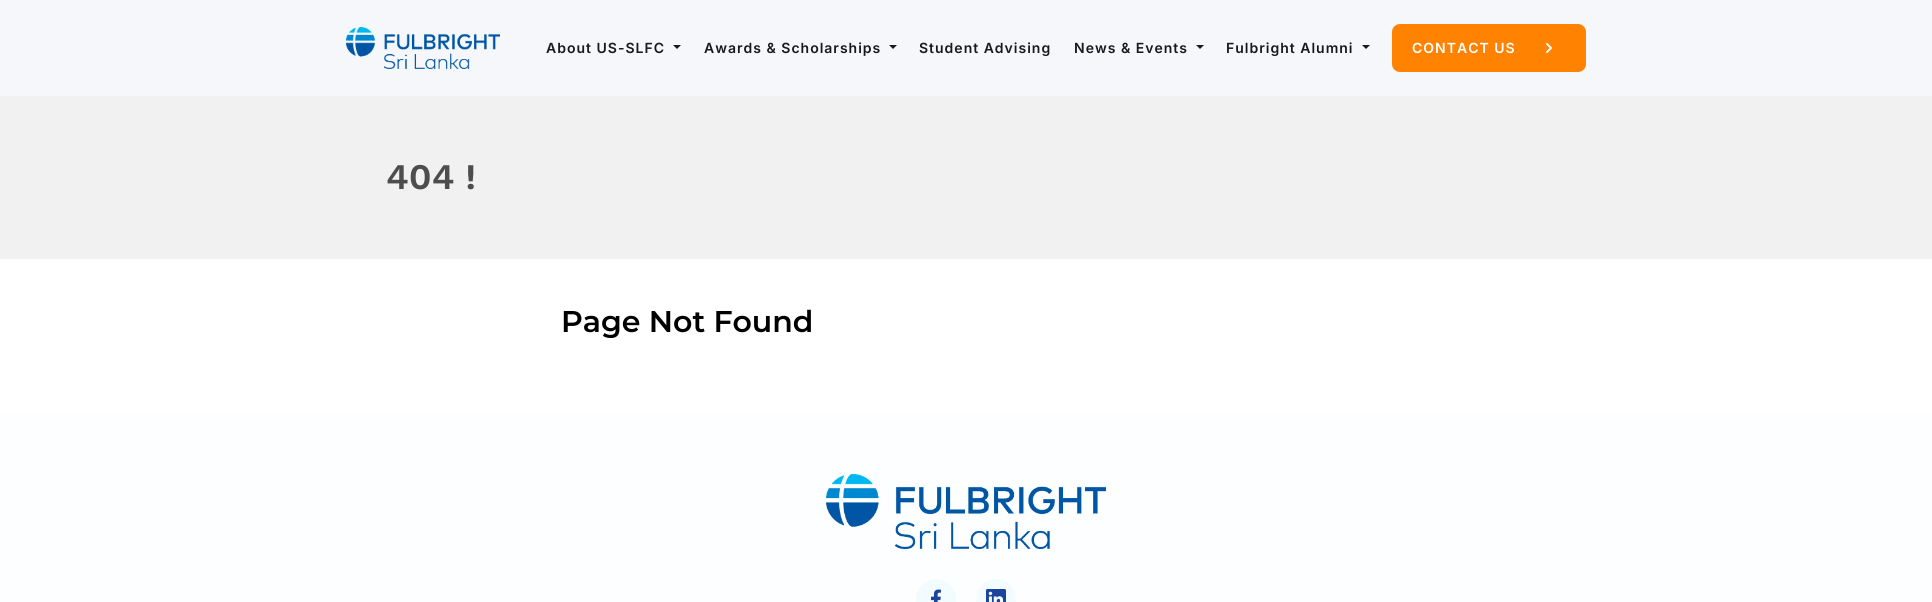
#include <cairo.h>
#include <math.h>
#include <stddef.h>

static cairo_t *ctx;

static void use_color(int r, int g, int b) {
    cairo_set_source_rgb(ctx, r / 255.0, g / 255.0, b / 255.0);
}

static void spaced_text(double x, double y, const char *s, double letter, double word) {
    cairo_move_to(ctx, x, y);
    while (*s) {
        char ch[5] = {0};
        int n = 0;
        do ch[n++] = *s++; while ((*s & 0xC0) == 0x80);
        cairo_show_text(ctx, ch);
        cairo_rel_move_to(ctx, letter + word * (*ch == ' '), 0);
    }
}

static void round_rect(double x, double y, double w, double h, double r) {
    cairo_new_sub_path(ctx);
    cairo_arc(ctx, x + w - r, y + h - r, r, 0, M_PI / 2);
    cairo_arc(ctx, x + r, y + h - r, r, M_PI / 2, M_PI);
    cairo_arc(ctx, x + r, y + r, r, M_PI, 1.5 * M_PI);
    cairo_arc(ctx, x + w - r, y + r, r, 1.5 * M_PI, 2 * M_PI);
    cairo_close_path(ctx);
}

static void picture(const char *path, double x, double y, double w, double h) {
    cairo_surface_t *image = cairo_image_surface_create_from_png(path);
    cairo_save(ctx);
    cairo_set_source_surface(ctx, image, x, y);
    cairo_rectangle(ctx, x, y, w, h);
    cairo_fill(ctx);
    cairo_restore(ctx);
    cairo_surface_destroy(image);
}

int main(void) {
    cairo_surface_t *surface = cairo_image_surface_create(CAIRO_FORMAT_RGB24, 1932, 602);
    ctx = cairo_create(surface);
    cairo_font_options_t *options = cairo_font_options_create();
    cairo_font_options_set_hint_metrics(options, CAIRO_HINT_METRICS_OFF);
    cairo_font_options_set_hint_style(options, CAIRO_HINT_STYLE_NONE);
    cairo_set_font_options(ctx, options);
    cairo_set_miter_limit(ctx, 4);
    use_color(245, 247, 250);
    cairo_paint(ctx);
    picture("img1.png", 346, 27, 154, 42);
    cairo_select_font_face(ctx, "Inter SemiBold", CAIRO_FONT_SLANT_NORMAL, CAIRO_FONT_WEIGHT_NORMAL);
    cairo_set_font_size(ctx, 14);
    use_color(24, 25, 31);
    spaced_text(546, 53, "About US-SLFC", 1, 0);
    cairo_new_path(ctx);
    cairo_move_to(ctx, 673, 45);
    cairo_line_to(ctx, 681, 45);
    cairo_line_to(ctx, 677, 49);
    cairo_close_path(ctx);
    cairo_fill(ctx);
    spaced_text(704, 53, "Awards & Scholarships", 1, 0);
    cairo_new_path(ctx);
    cairo_move_to(ctx, 889, 45);
    cairo_line_to(ctx, 897, 45);
    cairo_line_to(ctx, 893, 49);
    cairo_close_path(ctx);
    cairo_fill(ctx);
    spaced_text(919, 53, "Student Advising", 1, 0);
    spaced_text(1074, 53, "News & Events", 1, 0);
    cairo_new_path(ctx);
    cairo_move_to(ctx, 1196, 45);
    cairo_line_to(ctx, 1204, 45);
    cairo_line_to(ctx, 1200, 49);
    cairo_close_path(ctx);
    cairo_fill(ctx);
    spaced_text(1226, 53, "Fulbright Alumni", 1, 0);
    cairo_new_path(ctx);
    cairo_move_to(ctx, 1362, 45);
    cairo_line_to(ctx, 1370, 45);
    cairo_line_to(ctx, 1366, 49);
    cairo_close_path(ctx);
    cairo_fill(ctx);
    use_color(255, 130, 0);
    round_rect(1392, 24, 194, 48, 8);
    cairo_fill(ctx);
    picture("img2.png", 1546, 43, 6, 10);
    use_color(255, 255, 255);
    spaced_text(1412, 53, "CONTACT US", 1, 0);
    cairo_rectangle(ctx, 0, 259, 1932, 155);
    cairo_fill(ctx);
    use_color(241, 241, 241);
    cairo_rectangle(ctx, 0, 96, 1932, 163);
    cairo_fill(ctx);
    cairo_select_font_face(ctx, "Work Sans SemiBold", CAIRO_FONT_SLANT_NORMAL, CAIRO_FONT_WEIGHT_NORMAL);
    cairo_set_font_size(ctx, 36);
    use_color(77, 77, 77);
    cairo_move_to(ctx, 386, 189);
    cairo_show_text(ctx, "404 !");
    cairo_select_font_face(ctx, "Montserrat SemiBold", CAIRO_FONT_SLANT_NORMAL, CAIRO_FONT_WEIGHT_NORMAL);
    cairo_set_font_size(ctx, 30);
    use_color(0, 0, 0);
    cairo_move_to(ctx, 561, 332);
    cairo_show_text(ctx, "Page Not Found");
    use_color(252, 254, 255);
    cairo_rectangle(ctx, 0, 414, 1932, 188);
    cairo_fill(ctx);
    picture("img3.png", 826, 474, 280, 75);
    use_color(242, 252, 255);
    cairo_arc(ctx, 936, 599, 20, 0, 2 * M_PI);
    cairo_fill(ctx);
    picture("img4.png", 931, 589, 10, 13);
    cairo_arc(ctx, 996, 599, 20, 0, 2 * M_PI);
    cairo_fill(ctx);
    picture("img5.png", 986, 589, 20, 13);
    cairo_surface_write_to_png(surface, "result.png");
    cairo_font_options_destroy(options);
    cairo_destroy(ctx);
    cairo_surface_destroy(surface);
    return 0;
}
